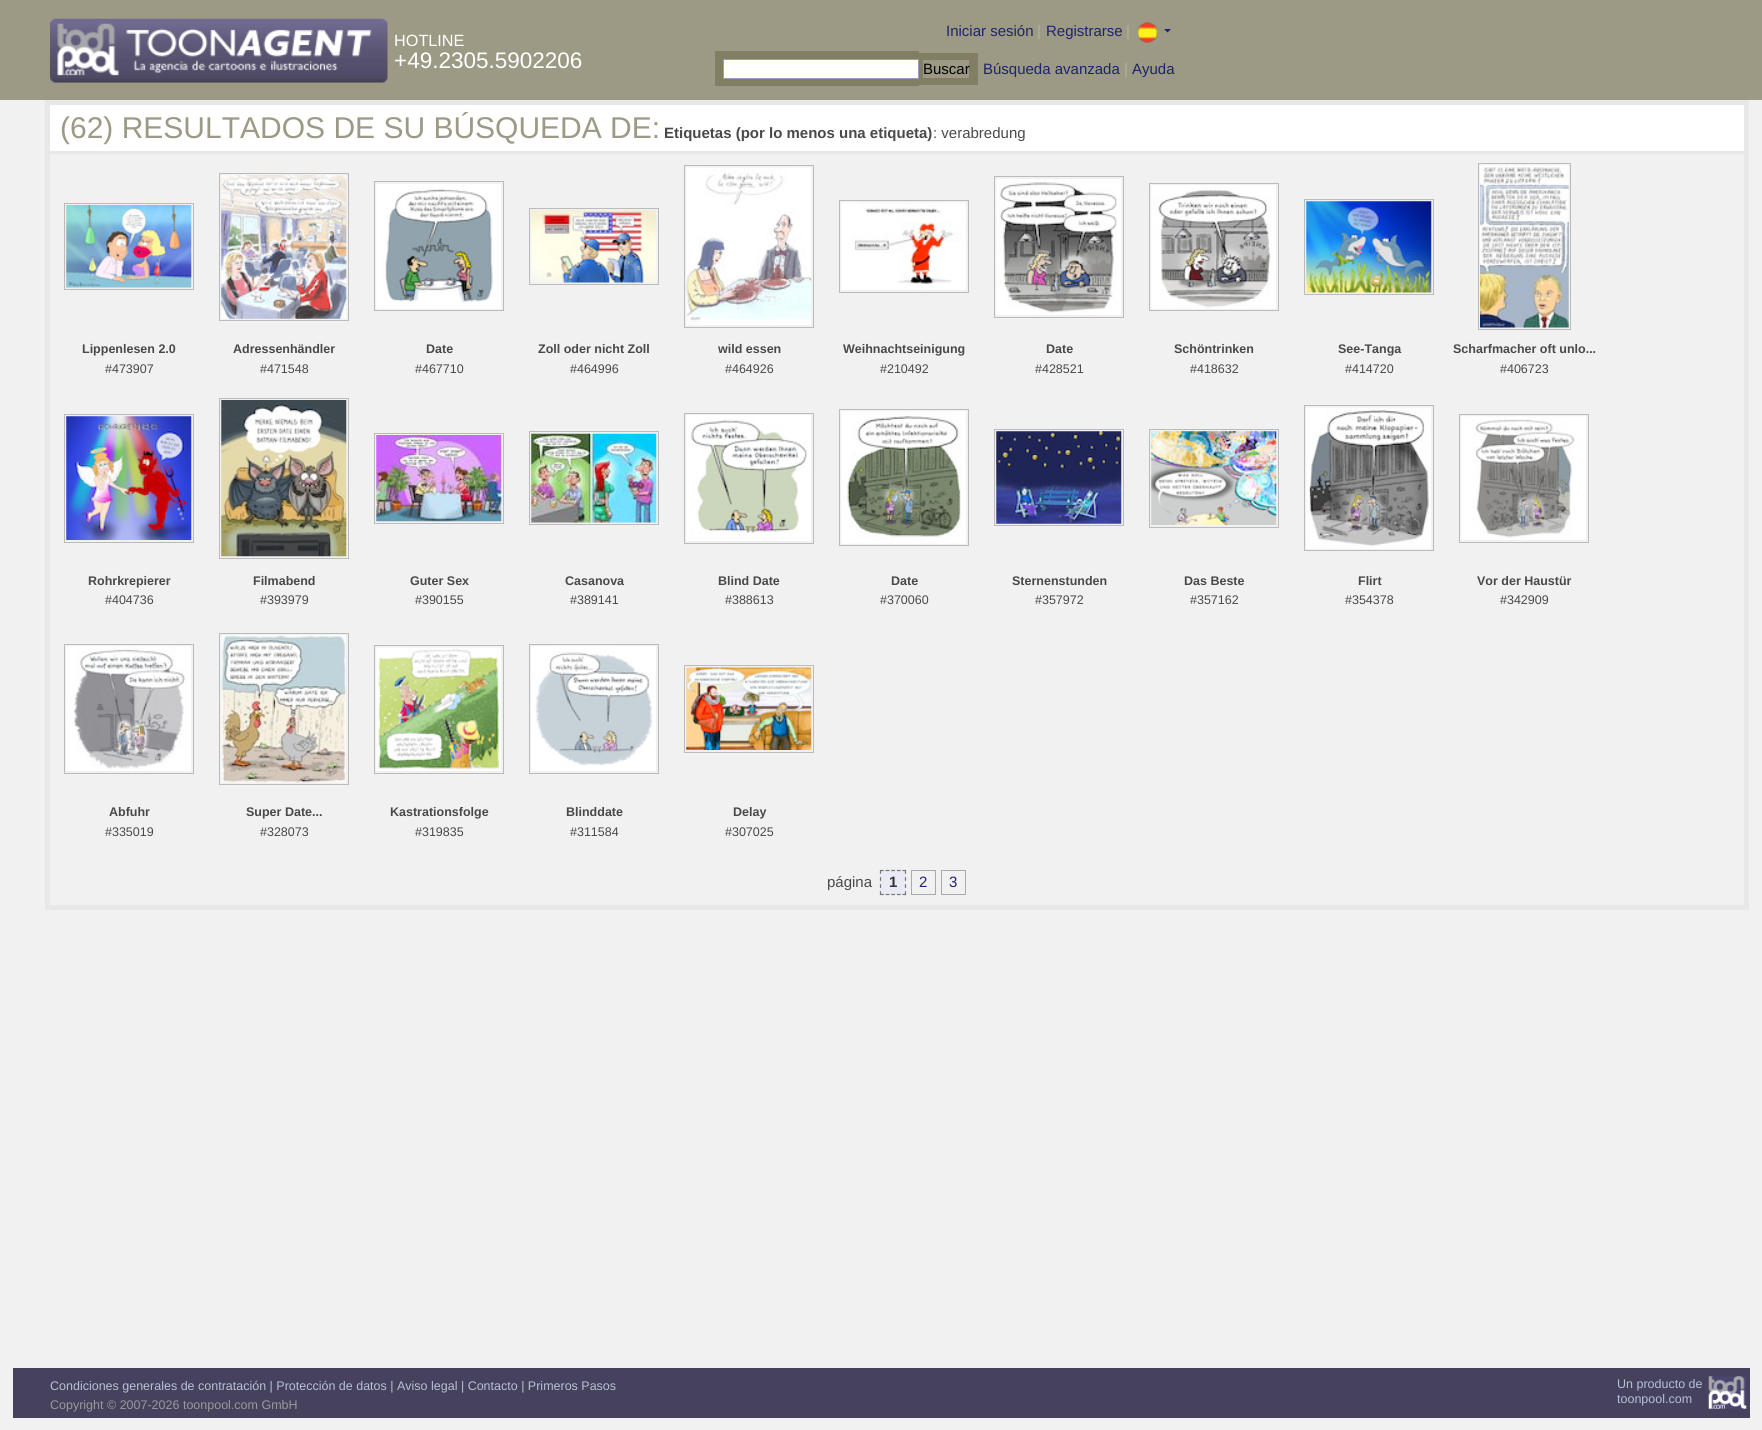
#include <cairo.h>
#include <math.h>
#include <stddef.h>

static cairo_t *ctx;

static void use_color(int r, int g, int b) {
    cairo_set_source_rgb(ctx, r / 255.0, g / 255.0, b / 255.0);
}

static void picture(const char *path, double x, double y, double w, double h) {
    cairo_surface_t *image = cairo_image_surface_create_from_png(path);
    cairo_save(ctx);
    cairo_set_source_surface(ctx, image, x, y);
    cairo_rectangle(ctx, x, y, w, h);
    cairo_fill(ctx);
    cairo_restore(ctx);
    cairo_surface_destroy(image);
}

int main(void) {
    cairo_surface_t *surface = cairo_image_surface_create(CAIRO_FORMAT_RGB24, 1762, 1430);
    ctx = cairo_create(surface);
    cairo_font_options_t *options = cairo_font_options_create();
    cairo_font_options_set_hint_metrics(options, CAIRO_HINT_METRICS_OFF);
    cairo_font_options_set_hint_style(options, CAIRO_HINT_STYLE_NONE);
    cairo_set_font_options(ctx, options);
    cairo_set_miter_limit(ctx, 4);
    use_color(241, 241, 241);
    cairo_paint(ctx);
    use_color(156, 153, 132);
    cairo_rectangle(ctx, 0, 0, 1762, 100);
    cairo_fill(ctx);
    cairo_select_font_face(ctx, "Liberation Sans", CAIRO_FONT_SLANT_NORMAL, CAIRO_FONT_WEIGHT_NORMAL);
    cairo_set_font_size(ctx, 15);
    use_color(29, 36, 108);
    cairo_move_to(ctx, 946, 36);
    cairo_show_text(ctx, "Iniciar sesión");
    use_color(181, 178, 155);
    cairo_move_to(ctx, 1037, 36);
    cairo_show_text(ctx, "|");
    use_color(29, 36, 108);
    cairo_move_to(ctx, 1046, 36);
    cairo_show_text(ctx, "Registrarse");
    use_color(181, 178, 155);
    cairo_move_to(ctx, 1126, 36);
    cairo_show_text(ctx, "|");
    picture("img1.png", 1137, 22, 21, 21);
    use_color(29, 36, 108);
    cairo_new_path(ctx);
    cairo_move_to(ctx, 1164, 29);
    cairo_line_to(ctx, 1171, 29);
    cairo_line_to(ctx, 1167.5, 32.5);
    cairo_close_path(ctx);
    cairo_fill(ctx);
    picture("img2.png", 50, 18, 338, 65);
    cairo_set_font_size(ctx, 16.25);
    use_color(255, 255, 255);
    cairo_move_to(ctx, 394, 46);
    cairo_show_text(ctx, "HOTLINE");
    cairo_set_font_size(ctx, 22.5);
    cairo_move_to(ctx, 394, 68);
    cairo_show_text(ctx, "+49.2305.5902206");
    use_color(130, 126, 99);
    cairo_rectangle(ctx, 715, 51, 204, 35);
    cairo_fill(ctx);
    cairo_rectangle(ctx, 919, 53, 59, 32);
    cairo_fill(ctx);
    use_color(255, 255, 255);
    cairo_rectangle(ctx, 723.5, 59.5, 195, 19);
    cairo_fill_preserve(ctx);
    use_color(153, 156, 187);
    cairo_set_line_width(ctx, 1);
    cairo_stroke(ctx);
    use_color(156, 153, 132);
    cairo_rectangle(ctx, 923, 60, 46, 18);
    cairo_fill(ctx);
    cairo_set_font_size(ctx, 15);
    use_color(0, 0, 0);
    cairo_move_to(ctx, 923, 74);
    cairo_show_text(ctx, "Buscar");
    use_color(29, 36, 108);
    cairo_move_to(ctx, 983, 74);
    cairo_show_text(ctx, "Búsqueda avanzada");
    use_color(181, 178, 155);
    cairo_move_to(ctx, 1124, 74);
    cairo_show_text(ctx, "|");
    use_color(29, 36, 108);
    cairo_move_to(ctx, 1132, 74);
    cairo_show_text(ctx, "Ayuda");
    cairo_rectangle(ctx, 47.5, 102.5, 1699, 805);
    use_color(232, 232, 232);
    cairo_set_line_width(ctx, 5);
    cairo_stroke(ctx);
    use_color(255, 255, 255);
    cairo_rectangle(ctx, 50, 105, 1694, 46);
    cairo_fill(ctx);
    cairo_set_font_size(ctx, 30);
    use_color(156, 153, 132);
    cairo_move_to(ctx, 60, 138);
    cairo_show_text(ctx, "(62) RESULTADOS DE SU BÚSQUEDA DE:");
    cairo_select_font_face(ctx, "Liberation Sans", CAIRO_FONT_SLANT_NORMAL, CAIRO_FONT_WEIGHT_BOLD);
    cairo_set_font_size(ctx, 15);
    use_color(73, 73, 73);
    cairo_move_to(ctx, 664, 138);
    cairo_show_text(ctx, "Etiquetas (por lo menos una etiqueta)");
    cairo_select_font_face(ctx, "Liberation Sans", CAIRO_FONT_SLANT_NORMAL, CAIRO_FONT_WEIGHT_NORMAL);
    cairo_move_to(ctx, 933, 138);
    cairo_show_text(ctx, ": verabredung");
    use_color(232, 232, 232);
    cairo_rectangle(ctx, 50, 151, 1694, 3);
    cairo_fill(ctx);
    cairo_rectangle(ctx, 64.5, 203.5, 129, 86);
    use_color(187, 187, 187);
    cairo_set_line_width(ctx, 1);
    cairo_stroke(ctx);
    picture("img3.png", 66, 205, 126, 83);
    cairo_select_font_face(ctx, "Liberation Sans", CAIRO_FONT_SLANT_NORMAL, CAIRO_FONT_WEIGHT_BOLD);
    cairo_set_font_size(ctx, 12.5);
    use_color(73, 73, 73);
    cairo_move_to(ctx, 82, 353);
    cairo_show_text(ctx, "Lippenlesen 2.0");
    cairo_select_font_face(ctx, "Liberation Sans", CAIRO_FONT_SLANT_NORMAL, CAIRO_FONT_WEIGHT_NORMAL);
    cairo_move_to(ctx, 105, 373);
    cairo_show_text(ctx, "#473907");
    cairo_rectangle(ctx, 219.5, 173.5, 129, 147);
    use_color(187, 187, 187);
    cairo_stroke(ctx);
    picture("img4.png", 221, 175, 126, 144);
    cairo_select_font_face(ctx, "Liberation Sans", CAIRO_FONT_SLANT_NORMAL, CAIRO_FONT_WEIGHT_BOLD);
    use_color(73, 73, 73);
    cairo_move_to(ctx, 233, 353);
    cairo_show_text(ctx, "Adressenhändler");
    cairo_select_font_face(ctx, "Liberation Sans", CAIRO_FONT_SLANT_NORMAL, CAIRO_FONT_WEIGHT_NORMAL);
    cairo_move_to(ctx, 260, 373);
    cairo_show_text(ctx, "#471548");
    cairo_rectangle(ctx, 374.5, 181.5, 129, 129);
    use_color(187, 187, 187);
    cairo_stroke(ctx);
    picture("img5.png", 376, 184, 125, 125);
    cairo_select_font_face(ctx, "Liberation Sans", CAIRO_FONT_SLANT_NORMAL, CAIRO_FONT_WEIGHT_BOLD);
    use_color(73, 73, 73);
    cairo_move_to(ctx, 426, 353);
    cairo_show_text(ctx, "Date");
    cairo_select_font_face(ctx, "Liberation Sans", CAIRO_FONT_SLANT_NORMAL, CAIRO_FONT_WEIGHT_NORMAL);
    cairo_move_to(ctx, 415, 373);
    cairo_show_text(ctx, "#467710");
    cairo_rectangle(ctx, 529.5, 208.5, 129, 76);
    use_color(187, 187, 187);
    cairo_stroke(ctx);
    picture("img6.png", 531, 210, 126, 73);
    cairo_select_font_face(ctx, "Liberation Sans", CAIRO_FONT_SLANT_NORMAL, CAIRO_FONT_WEIGHT_BOLD);
    use_color(73, 73, 73);
    cairo_move_to(ctx, 538, 353);
    cairo_show_text(ctx, "Zoll oder nicht Zoll");
    cairo_select_font_face(ctx, "Liberation Sans", CAIRO_FONT_SLANT_NORMAL, CAIRO_FONT_WEIGHT_NORMAL);
    cairo_move_to(ctx, 570, 373);
    cairo_show_text(ctx, "#464996");
    cairo_rectangle(ctx, 684.5, 165.5, 129, 162);
    use_color(187, 187, 187);
    cairo_stroke(ctx);
    picture("img7.png", 686, 167, 126, 158);
    cairo_select_font_face(ctx, "Liberation Sans", CAIRO_FONT_SLANT_NORMAL, CAIRO_FONT_WEIGHT_BOLD);
    use_color(73, 73, 73);
    cairo_move_to(ctx, 718, 353);
    cairo_show_text(ctx, "wild essen");
    cairo_select_font_face(ctx, "Liberation Sans", CAIRO_FONT_SLANT_NORMAL, CAIRO_FONT_WEIGHT_NORMAL);
    cairo_move_to(ctx, 725, 373);
    cairo_show_text(ctx, "#464926");
    cairo_rectangle(ctx, 839.5, 200.5, 129, 92);
    use_color(187, 187, 187);
    cairo_stroke(ctx);
    picture("img8.png", 841, 202, 125, 88);
    cairo_select_font_face(ctx, "Liberation Sans", CAIRO_FONT_SLANT_NORMAL, CAIRO_FONT_WEIGHT_BOLD);
    use_color(73, 73, 73);
    cairo_move_to(ctx, 843, 353);
    cairo_show_text(ctx, "Weihnachtseinigung");
    cairo_select_font_face(ctx, "Liberation Sans", CAIRO_FONT_SLANT_NORMAL, CAIRO_FONT_WEIGHT_NORMAL);
    cairo_move_to(ctx, 880, 373);
    cairo_show_text(ctx, "#210492");
    cairo_rectangle(ctx, 994.5, 176.5, 129, 141);
    use_color(187, 187, 187);
    cairo_stroke(ctx);
    picture("img9.png", 996, 179, 125, 136);
    cairo_select_font_face(ctx, "Liberation Sans", CAIRO_FONT_SLANT_NORMAL, CAIRO_FONT_WEIGHT_BOLD);
    use_color(73, 73, 73);
    cairo_move_to(ctx, 1046, 353);
    cairo_show_text(ctx, "Date");
    cairo_select_font_face(ctx, "Liberation Sans", CAIRO_FONT_SLANT_NORMAL, CAIRO_FONT_WEIGHT_NORMAL);
    cairo_move_to(ctx, 1035, 373);
    cairo_show_text(ctx, "#428521");
    cairo_rectangle(ctx, 1149.5, 183.5, 129, 127);
    use_color(187, 187, 187);
    cairo_stroke(ctx);
    picture("img10.png", 1151, 185, 125, 124);
    cairo_select_font_face(ctx, "Liberation Sans", CAIRO_FONT_SLANT_NORMAL, CAIRO_FONT_WEIGHT_BOLD);
    use_color(73, 73, 73);
    cairo_move_to(ctx, 1174, 353);
    cairo_show_text(ctx, "Schöntrinken");
    cairo_select_font_face(ctx, "Liberation Sans", CAIRO_FONT_SLANT_NORMAL, CAIRO_FONT_WEIGHT_NORMAL);
    cairo_move_to(ctx, 1190, 373);
    cairo_show_text(ctx, "#418632");
    cairo_rectangle(ctx, 1304.5, 199.5, 129, 95);
    use_color(187, 187, 187);
    cairo_stroke(ctx);
    picture("img11.png", 1306, 201, 126, 92);
    cairo_select_font_face(ctx, "Liberation Sans", CAIRO_FONT_SLANT_NORMAL, CAIRO_FONT_WEIGHT_BOLD);
    use_color(73, 73, 73);
    cairo_move_to(ctx, 1338, 353);
    cairo_show_text(ctx, "See-Tanga");
    cairo_select_font_face(ctx, "Liberation Sans", CAIRO_FONT_SLANT_NORMAL, CAIRO_FONT_WEIGHT_NORMAL);
    cairo_move_to(ctx, 1345, 373);
    cairo_show_text(ctx, "#414720");
    cairo_rectangle(ctx, 1478.5, 163.5, 92, 166);
    use_color(187, 187, 187);
    cairo_stroke(ctx);
    picture("img12.png", 1480, 165, 89, 163);
    cairo_select_font_face(ctx, "Liberation Sans", CAIRO_FONT_SLANT_NORMAL, CAIRO_FONT_WEIGHT_BOLD);
    use_color(73, 73, 73);
    cairo_move_to(ctx, 1453, 353);
    cairo_show_text(ctx, "Scharfmacher oft unlo...");
    cairo_select_font_face(ctx, "Liberation Sans", CAIRO_FONT_SLANT_NORMAL, CAIRO_FONT_WEIGHT_NORMAL);
    cairo_move_to(ctx, 1500, 373);
    cairo_show_text(ctx, "#406723");
    cairo_rectangle(ctx, 64.5, 414.5, 129, 128);
    use_color(187, 187, 187);
    cairo_stroke(ctx);
    picture("img13.png", 66, 416, 126, 124);
    cairo_select_font_face(ctx, "Liberation Sans", CAIRO_FONT_SLANT_NORMAL, CAIRO_FONT_WEIGHT_BOLD);
    use_color(73, 73, 73);
    cairo_move_to(ctx, 88, 585);
    cairo_show_text(ctx, "Rohrkrepierer");
    cairo_select_font_face(ctx, "Liberation Sans", CAIRO_FONT_SLANT_NORMAL, CAIRO_FONT_WEIGHT_NORMAL);
    cairo_move_to(ctx, 105, 604);
    cairo_show_text(ctx, "#404736");
    cairo_rectangle(ctx, 219.5, 398.5, 129, 160);
    use_color(187, 187, 187);
    cairo_stroke(ctx);
    picture("img14.png", 221, 400, 126, 157);
    cairo_select_font_face(ctx, "Liberation Sans", CAIRO_FONT_SLANT_NORMAL, CAIRO_FONT_WEIGHT_BOLD);
    use_color(73, 73, 73);
    cairo_move_to(ctx, 253, 585);
    cairo_show_text(ctx, "Filmabend");
    cairo_select_font_face(ctx, "Liberation Sans", CAIRO_FONT_SLANT_NORMAL, CAIRO_FONT_WEIGHT_NORMAL);
    cairo_move_to(ctx, 260, 604);
    cairo_show_text(ctx, "#393979");
    cairo_rectangle(ctx, 374.5, 433.5, 129, 90);
    use_color(187, 187, 187);
    cairo_stroke(ctx);
    picture("img15.png", 376, 435, 126, 87);
    cairo_select_font_face(ctx, "Liberation Sans", CAIRO_FONT_SLANT_NORMAL, CAIRO_FONT_WEIGHT_BOLD);
    use_color(73, 73, 73);
    cairo_move_to(ctx, 410, 585);
    cairo_show_text(ctx, "Guter Sex");
    cairo_select_font_face(ctx, "Liberation Sans", CAIRO_FONT_SLANT_NORMAL, CAIRO_FONT_WEIGHT_NORMAL);
    cairo_move_to(ctx, 415, 604);
    cairo_show_text(ctx, "#390155");
    cairo_rectangle(ctx, 529.5, 431.5, 129, 93);
    use_color(187, 187, 187);
    cairo_stroke(ctx);
    picture("img16.png", 531, 433, 126, 90);
    cairo_select_font_face(ctx, "Liberation Sans", CAIRO_FONT_SLANT_NORMAL, CAIRO_FONT_WEIGHT_BOLD);
    use_color(73, 73, 73);
    cairo_move_to(ctx, 565, 585);
    cairo_show_text(ctx, "Casanova");
    cairo_select_font_face(ctx, "Liberation Sans", CAIRO_FONT_SLANT_NORMAL, CAIRO_FONT_WEIGHT_NORMAL);
    cairo_move_to(ctx, 570, 604);
    cairo_show_text(ctx, "#389141");
    cairo_rectangle(ctx, 684.5, 413.5, 129, 130);
    use_color(187, 187, 187);
    cairo_stroke(ctx);
    picture("img17.png", 686, 415, 125, 126);
    cairo_select_font_face(ctx, "Liberation Sans", CAIRO_FONT_SLANT_NORMAL, CAIRO_FONT_WEIGHT_BOLD);
    use_color(73, 73, 73);
    cairo_move_to(ctx, 718, 585);
    cairo_show_text(ctx, "Blind Date");
    cairo_select_font_face(ctx, "Liberation Sans", CAIRO_FONT_SLANT_NORMAL, CAIRO_FONT_WEIGHT_NORMAL);
    cairo_move_to(ctx, 725, 604);
    cairo_show_text(ctx, "#388613");
    cairo_rectangle(ctx, 839.5, 409.5, 129, 136);
    use_color(187, 187, 187);
    cairo_stroke(ctx);
    picture("img18.png", 841, 411, 125, 133);
    cairo_select_font_face(ctx, "Liberation Sans", CAIRO_FONT_SLANT_NORMAL, CAIRO_FONT_WEIGHT_BOLD);
    use_color(73, 73, 73);
    cairo_move_to(ctx, 891, 585);
    cairo_show_text(ctx, "Date");
    cairo_select_font_face(ctx, "Liberation Sans", CAIRO_FONT_SLANT_NORMAL, CAIRO_FONT_WEIGHT_NORMAL);
    cairo_move_to(ctx, 880, 604);
    cairo_show_text(ctx, "#370060");
    cairo_rectangle(ctx, 994.5, 429.5, 129, 96);
    use_color(187, 187, 187);
    cairo_stroke(ctx);
    picture("img19.png", 996, 431, 126, 93);
    cairo_select_font_face(ctx, "Liberation Sans", CAIRO_FONT_SLANT_NORMAL, CAIRO_FONT_WEIGHT_BOLD);
    use_color(73, 73, 73);
    cairo_move_to(ctx, 1012, 585);
    cairo_show_text(ctx, "Sternenstunden");
    cairo_select_font_face(ctx, "Liberation Sans", CAIRO_FONT_SLANT_NORMAL, CAIRO_FONT_WEIGHT_NORMAL);
    cairo_move_to(ctx, 1035, 604);
    cairo_show_text(ctx, "#357972");
    cairo_rectangle(ctx, 1149.5, 429.5, 129, 98);
    use_color(187, 187, 187);
    cairo_stroke(ctx);
    picture("img20.png", 1151, 431, 126, 94);
    cairo_select_font_face(ctx, "Liberation Sans", CAIRO_FONT_SLANT_NORMAL, CAIRO_FONT_WEIGHT_BOLD);
    use_color(73, 73, 73);
    cairo_move_to(ctx, 1184, 585);
    cairo_show_text(ctx, "Das Beste");
    cairo_select_font_face(ctx, "Liberation Sans", CAIRO_FONT_SLANT_NORMAL, CAIRO_FONT_WEIGHT_NORMAL);
    cairo_move_to(ctx, 1190, 604);
    cairo_show_text(ctx, "#357162");
    cairo_rectangle(ctx, 1304.5, 405.5, 129, 145);
    use_color(187, 187, 187);
    cairo_stroke(ctx);
    picture("img21.png", 1306, 407, 125, 142);
    cairo_select_font_face(ctx, "Liberation Sans", CAIRO_FONT_SLANT_NORMAL, CAIRO_FONT_WEIGHT_BOLD);
    use_color(73, 73, 73);
    cairo_move_to(ctx, 1358, 585);
    cairo_show_text(ctx, "Flirt");
    cairo_select_font_face(ctx, "Liberation Sans", CAIRO_FONT_SLANT_NORMAL, CAIRO_FONT_WEIGHT_NORMAL);
    cairo_move_to(ctx, 1345, 604);
    cairo_show_text(ctx, "#354378");
    cairo_rectangle(ctx, 1459.5, 414.5, 129, 128);
    use_color(187, 187, 187);
    cairo_stroke(ctx);
    picture("img22.png", 1461, 416, 125, 124);
    cairo_select_font_face(ctx, "Liberation Sans", CAIRO_FONT_SLANT_NORMAL, CAIRO_FONT_WEIGHT_BOLD);
    use_color(73, 73, 73);
    cairo_move_to(ctx, 1477, 585);
    cairo_show_text(ctx, "Vor der Haustür");
    cairo_select_font_face(ctx, "Liberation Sans", CAIRO_FONT_SLANT_NORMAL, CAIRO_FONT_WEIGHT_NORMAL);
    cairo_move_to(ctx, 1500, 604);
    cairo_show_text(ctx, "#342909");
    cairo_rectangle(ctx, 64.5, 644.5, 129, 129);
    use_color(187, 187, 187);
    cairo_stroke(ctx);
    picture("img23.png", 66, 646, 125, 125);
    cairo_select_font_face(ctx, "Liberation Sans", CAIRO_FONT_SLANT_NORMAL, CAIRO_FONT_WEIGHT_BOLD);
    use_color(73, 73, 73);
    cairo_move_to(ctx, 109, 816);
    cairo_show_text(ctx, "Abfuhr");
    cairo_select_font_face(ctx, "Liberation Sans", CAIRO_FONT_SLANT_NORMAL, CAIRO_FONT_WEIGHT_NORMAL);
    cairo_move_to(ctx, 105, 836);
    cairo_show_text(ctx, "#335019");
    cairo_rectangle(ctx, 219.5, 633.5, 129, 151);
    use_color(187, 187, 187);
    cairo_stroke(ctx);
    picture("img24.png", 221, 635, 125, 148);
    cairo_select_font_face(ctx, "Liberation Sans", CAIRO_FONT_SLANT_NORMAL, CAIRO_FONT_WEIGHT_BOLD);
    use_color(73, 73, 73);
    cairo_move_to(ctx, 246, 816);
    cairo_show_text(ctx, "Super Date...");
    cairo_select_font_face(ctx, "Liberation Sans", CAIRO_FONT_SLANT_NORMAL, CAIRO_FONT_WEIGHT_NORMAL);
    cairo_move_to(ctx, 260, 836);
    cairo_show_text(ctx, "#328073");
    cairo_rectangle(ctx, 374.5, 645.5, 129, 128);
    use_color(187, 187, 187);
    cairo_stroke(ctx);
    picture("img25.png", 376, 647, 125, 124);
    cairo_select_font_face(ctx, "Liberation Sans", CAIRO_FONT_SLANT_NORMAL, CAIRO_FONT_WEIGHT_BOLD);
    use_color(73, 73, 73);
    cairo_move_to(ctx, 390, 816);
    cairo_show_text(ctx, "Kastrationsfolge");
    cairo_select_font_face(ctx, "Liberation Sans", CAIRO_FONT_SLANT_NORMAL, CAIRO_FONT_WEIGHT_NORMAL);
    cairo_move_to(ctx, 415, 836);
    cairo_show_text(ctx, "#319835");
    cairo_rectangle(ctx, 529.5, 644.5, 129, 129);
    use_color(187, 187, 187);
    cairo_stroke(ctx);
    picture("img26.png", 531, 646, 125, 125);
    cairo_select_font_face(ctx, "Liberation Sans", CAIRO_FONT_SLANT_NORMAL, CAIRO_FONT_WEIGHT_BOLD);
    use_color(73, 73, 73);
    cairo_move_to(ctx, 566, 816);
    cairo_show_text(ctx, "Blinddate");
    cairo_select_font_face(ctx, "Liberation Sans", CAIRO_FONT_SLANT_NORMAL, CAIRO_FONT_WEIGHT_NORMAL);
    cairo_move_to(ctx, 570, 836);
    cairo_show_text(ctx, "#311584");
    cairo_rectangle(ctx, 684.5, 665.5, 129, 87);
    use_color(187, 187, 187);
    cairo_stroke(ctx);
    picture("img27.png", 686, 667, 126, 83);
    cairo_select_font_face(ctx, "Liberation Sans", CAIRO_FONT_SLANT_NORMAL, CAIRO_FONT_WEIGHT_BOLD);
    use_color(73, 73, 73);
    cairo_move_to(ctx, 733, 816);
    cairo_show_text(ctx, "Delay");
    cairo_select_font_face(ctx, "Liberation Sans", CAIRO_FONT_SLANT_NORMAL, CAIRO_FONT_WEIGHT_NORMAL);
    cairo_move_to(ctx, 725, 836);
    cairo_show_text(ctx, "#307025");
    cairo_set_font_size(ctx, 15);
    cairo_move_to(ctx, 827, 887);
    cairo_show_text(ctx, "página");
    use_color(233, 234, 245);
    cairo_rectangle(ctx, 880, 870, 26, 25);
    cairo_fill(ctx);
    cairo_select_font_face(ctx, "Liberation Sans", CAIRO_FONT_SLANT_NORMAL, CAIRO_FONT_WEIGHT_BOLD);
    use_color(51, 51, 51);
    cairo_move_to(ctx, 889, 887);
    cairo_show_text(ctx, "1");
    cairo_new_path(ctx);
    cairo_move_to(ctx, 880, 870.5);
    cairo_line_to(ctx, 906, 870.5);
    use_color(119, 119, 119);
    cairo_set_line_width(ctx, 1.2);
    cairo_set_dash(ctx, (double[]){3.75, 1.88}, 2, 0);
    cairo_stroke(ctx);
    cairo_new_path(ctx);
    cairo_move_to(ctx, 905.5, 870);
    cairo_line_to(ctx, 905.5, 895);
    cairo_set_dash(ctx, (double[]){3.75, 3.34}, 2, 0);
    cairo_stroke(ctx);
    cairo_new_path(ctx);
    cairo_move_to(ctx, 880, 894.5);
    cairo_line_to(ctx, 906, 894.5);
    cairo_set_dash(ctx, (double[]){3.75, 1.88}, 2, 0);
    cairo_stroke(ctx);
    cairo_new_path(ctx);
    cairo_move_to(ctx, 880.5, 870);
    cairo_line_to(ctx, 880.5, 895);
    cairo_set_dash(ctx, (double[]){3.75, 3.34}, 2, 0);
    cairo_stroke(ctx);
    cairo_rectangle(ctx, 911.5, 870.5, 24, 24);
    use_color(170, 170, 170);
    cairo_set_line_width(ctx, 1);
    cairo_set_dash(ctx, NULL, 0, 0);
    cairo_stroke(ctx);
    cairo_select_font_face(ctx, "Liberation Sans", CAIRO_FONT_SLANT_NORMAL, CAIRO_FONT_WEIGHT_NORMAL);
    use_color(29, 36, 108);
    cairo_move_to(ctx, 919, 887);
    cairo_show_text(ctx, "2");
    cairo_rectangle(ctx, 941.5, 870.5, 24, 24);
    use_color(170, 170, 170);
    cairo_stroke(ctx);
    use_color(29, 36, 108);
    cairo_move_to(ctx, 949, 887);
    cairo_show_text(ctx, "3");
    use_color(70, 65, 92);
    cairo_rectangle(ctx, 13, 1368, 1737, 50);
    cairo_fill(ctx);
    cairo_set_font_size(ctx, 12.5);
    use_color(182, 194, 216);
    cairo_move_to(ctx, 50, 1390);
    cairo_show_text(ctx, "Condiciones generales de contratación | Protección de datos | Aviso legal | Contacto | Primeros Pasos");
    use_color(153, 153, 153);
    cairo_move_to(ctx, 50, 1409);
    cairo_show_text(ctx, "Copyright © 2007-2026 toonpool.com GmbH");
    use_color(182, 194, 216);
    cairo_move_to(ctx, 1617, 1388);
    cairo_show_text(ctx, "Un producto de");
    picture("img28.png", 1708, 1376, 39, 33);
    cairo_move_to(ctx, 1617, 1403);
    cairo_show_text(ctx, "toonpool.com");
    cairo_surface_write_to_png(surface, "result.png");
    cairo_font_options_destroy(options);
    cairo_destroy(ctx);
    cairo_surface_destroy(surface);
    return 0;
}
